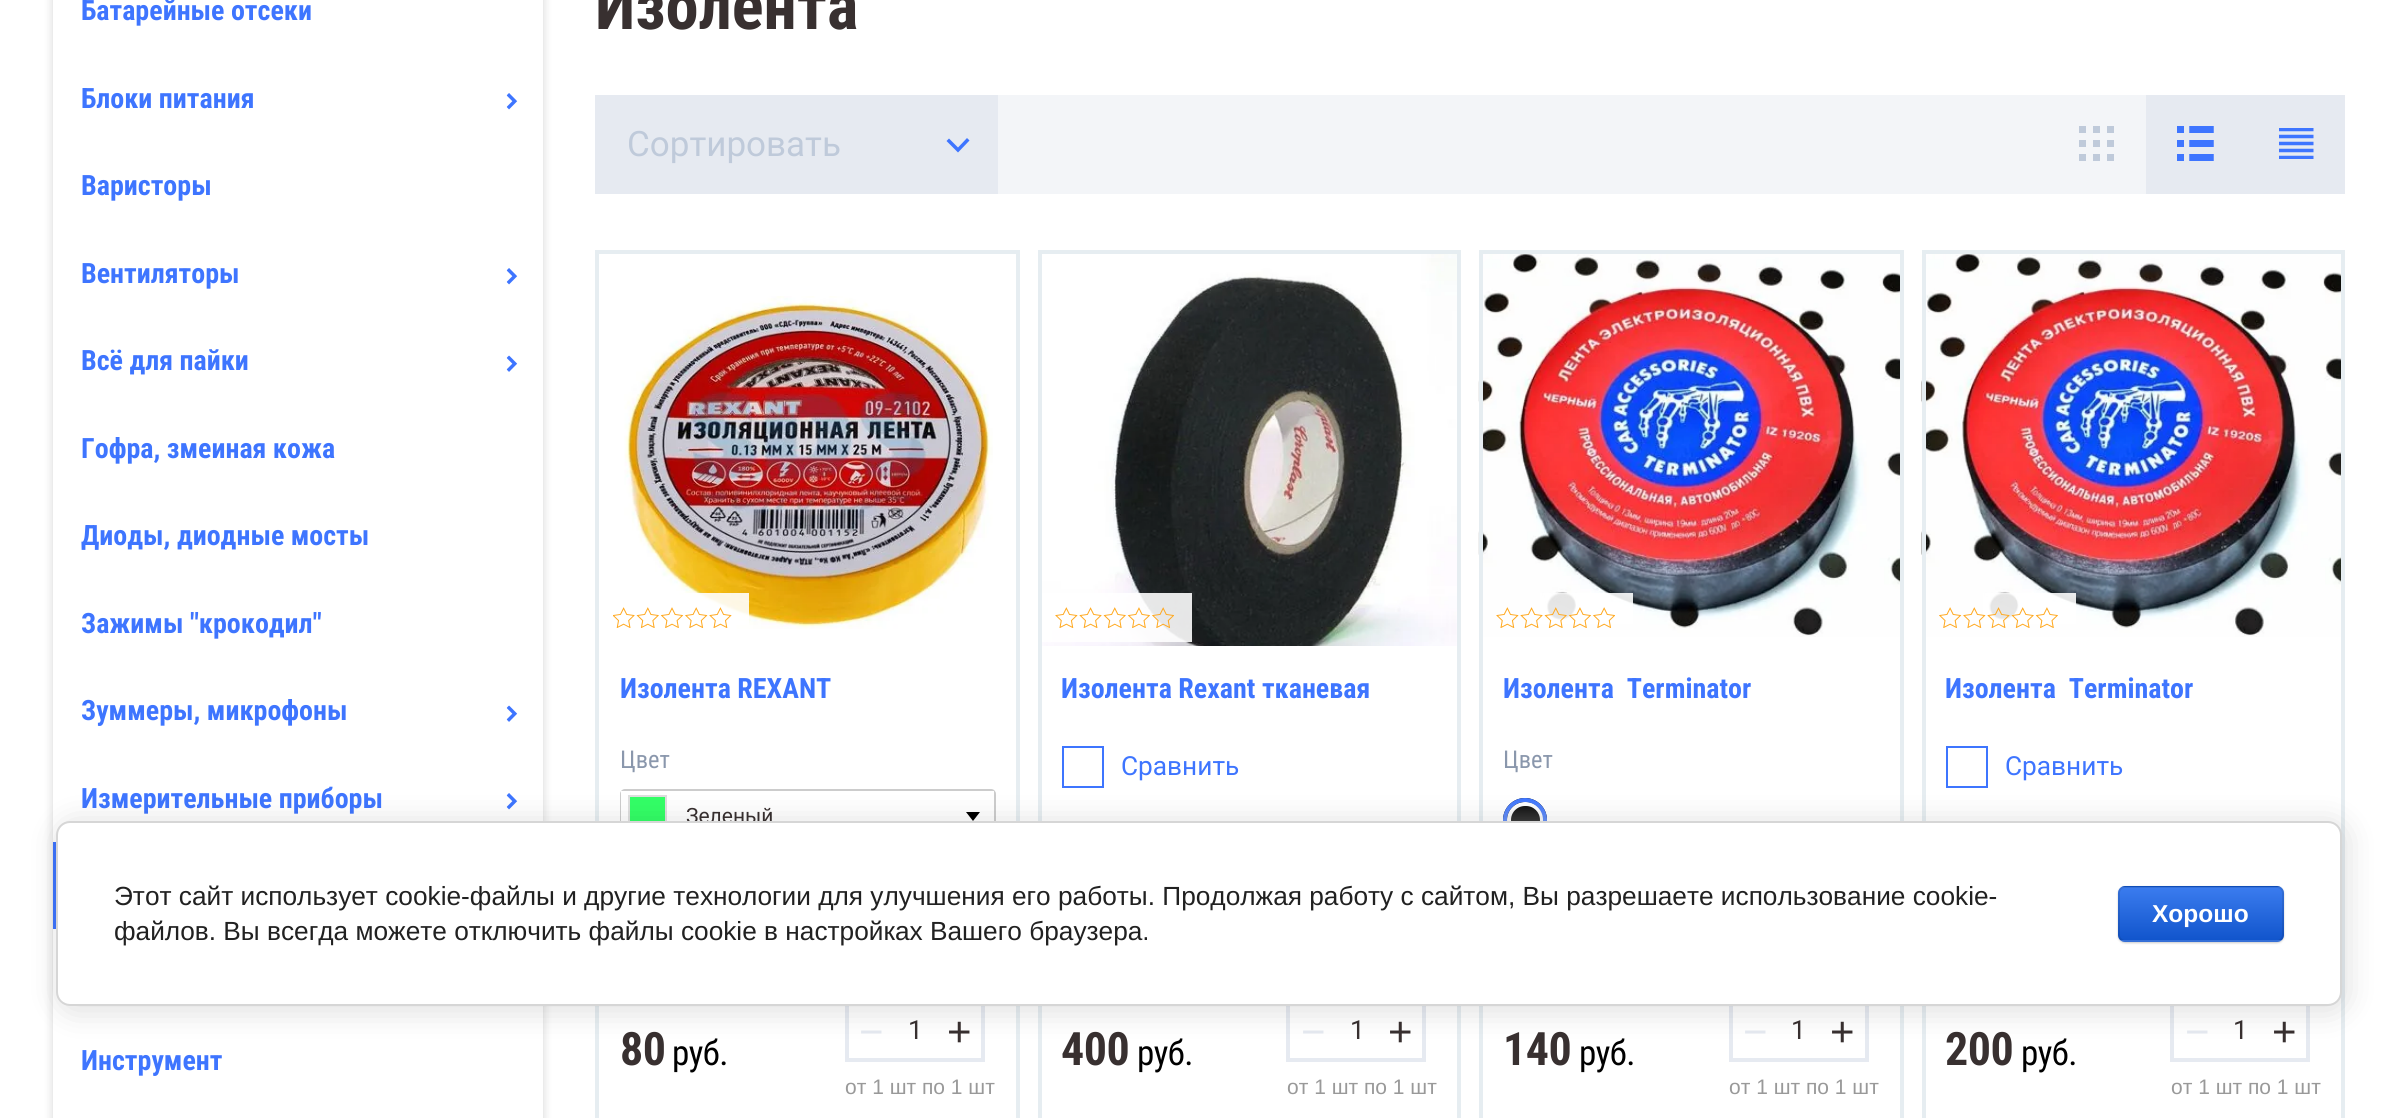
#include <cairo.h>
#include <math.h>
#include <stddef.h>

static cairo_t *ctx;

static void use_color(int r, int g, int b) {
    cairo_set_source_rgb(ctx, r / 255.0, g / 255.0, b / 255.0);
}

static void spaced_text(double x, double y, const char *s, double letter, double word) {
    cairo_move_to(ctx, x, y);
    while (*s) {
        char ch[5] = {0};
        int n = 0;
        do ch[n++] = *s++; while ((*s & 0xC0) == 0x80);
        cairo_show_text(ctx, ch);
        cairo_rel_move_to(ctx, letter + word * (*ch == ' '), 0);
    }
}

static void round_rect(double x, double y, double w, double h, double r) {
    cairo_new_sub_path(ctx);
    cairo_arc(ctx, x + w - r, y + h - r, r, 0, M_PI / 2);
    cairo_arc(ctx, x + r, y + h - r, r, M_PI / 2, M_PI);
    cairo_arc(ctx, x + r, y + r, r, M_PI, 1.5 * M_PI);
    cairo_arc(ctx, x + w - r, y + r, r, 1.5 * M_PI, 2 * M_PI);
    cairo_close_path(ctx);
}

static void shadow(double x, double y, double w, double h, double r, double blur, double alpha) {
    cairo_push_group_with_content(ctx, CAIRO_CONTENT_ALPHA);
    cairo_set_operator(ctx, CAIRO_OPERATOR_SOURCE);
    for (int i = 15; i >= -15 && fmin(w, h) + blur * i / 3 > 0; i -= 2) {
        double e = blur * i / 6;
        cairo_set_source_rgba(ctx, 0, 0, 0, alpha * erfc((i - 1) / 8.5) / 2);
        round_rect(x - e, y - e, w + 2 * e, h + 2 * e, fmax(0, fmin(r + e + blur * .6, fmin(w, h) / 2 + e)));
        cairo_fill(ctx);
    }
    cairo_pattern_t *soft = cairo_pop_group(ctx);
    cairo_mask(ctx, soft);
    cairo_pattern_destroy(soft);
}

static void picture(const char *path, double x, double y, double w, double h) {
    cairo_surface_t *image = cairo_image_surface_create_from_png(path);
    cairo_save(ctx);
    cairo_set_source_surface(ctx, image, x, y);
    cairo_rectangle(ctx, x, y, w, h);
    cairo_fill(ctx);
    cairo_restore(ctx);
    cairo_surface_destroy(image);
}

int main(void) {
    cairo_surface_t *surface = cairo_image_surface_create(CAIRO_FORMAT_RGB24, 2396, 1118);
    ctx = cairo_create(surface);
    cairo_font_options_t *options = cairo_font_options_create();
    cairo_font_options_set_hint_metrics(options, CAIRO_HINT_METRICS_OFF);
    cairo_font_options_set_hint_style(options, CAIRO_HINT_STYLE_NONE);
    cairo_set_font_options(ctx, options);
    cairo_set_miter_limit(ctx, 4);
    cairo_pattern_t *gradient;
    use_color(255, 255, 255);
    cairo_paint(ctx);
    use_color(0, 0, 0);
    shadow(53, -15, 490, 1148, 0, 5, 0.16);
    use_color(255, 255, 255);
    cairo_rectangle(ctx, 53, 0, 490, 1118);
    cairo_fill(ctx);
    cairo_select_font_face(ctx, "Roboto Condensed", CAIRO_FONT_SLANT_NORMAL, CAIRO_FONT_WEIGHT_BOLD);
    cairo_set_font_size(ctx, 28);
    use_color(62, 117, 255);
    cairo_move_to(ctx, 81, 20);
    cairo_show_text(ctx, "Батарейные отсеки");
    cairo_move_to(ctx, 81, 108);
    cairo_show_text(ctx, "Блоки питания");
    picture("img1.png", 506, 93, 12, 17);
    cairo_move_to(ctx, 81, 195);
    cairo_show_text(ctx, "Варисторы");
    cairo_move_to(ctx, 81, 283);
    cairo_show_text(ctx, "Вентиляторы");
    picture("img1.png", 506, 268, 12, 17);
    cairo_move_to(ctx, 81, 370);
    cairo_show_text(ctx, "Всё для пайки");
    picture("img2.png", 506, 355, 12, 17);
    cairo_move_to(ctx, 81, 458);
    cairo_show_text(ctx, "Гофра, змеиная кожа");
    cairo_move_to(ctx, 81, 545);
    cairo_show_text(ctx, "Диоды, диодные мосты");
    cairo_move_to(ctx, 81, 633);
    cairo_show_text(ctx, "Зажимы \"крокодил\"");
    cairo_move_to(ctx, 81, 720);
    cairo_show_text(ctx, "Зуммеры, микрофоны");
    picture("img2.png", 506, 705, 12, 17);
    cairo_move_to(ctx, 81, 808);
    cairo_show_text(ctx, "Измерительные приборы");
    picture("img1.png", 506, 793, 12, 17);
    cairo_rectangle(ctx, 53, 842, 3, 87);
    cairo_fill(ctx);
    cairo_move_to(ctx, 81, 1070);
    cairo_show_text(ctx, "Инструмент");
    cairo_set_font_size(ctx, 66.5);
    use_color(56, 48, 48);
    cairo_move_to(ctx, 595, 29);
    cairo_show_text(ctx, "Изолента");
    use_color(243, 245, 248);
    cairo_rectangle(ctx, 998, 95, 1148, 99);
    cairo_fill(ctx);
    use_color(230, 234, 241);
    cairo_rectangle(ctx, 595, 95, 403, 99);
    cairo_fill(ctx);
    cairo_select_font_face(ctx, "Roboto", CAIRO_FONT_SLANT_NORMAL, CAIRO_FONT_WEIGHT_NORMAL);
    cairo_set_font_size(ctx, 35);
    use_color(191, 202, 218);
    cairo_move_to(ctx, 627, 156);
    cairo_show_text(ctx, "Сортировать");
    use_color(62, 117, 255);
    cairo_set_fill_rule(ctx, CAIRO_FILL_RULE_EVEN_ODD);
    cairo_new_path(ctx);
    cairo_move_to(ctx, 958, 147.5);
    cairo_line_to(ctx, 949, 138.5);
    cairo_line_to(ctx, 946.5, 141);
    cairo_line_to(ctx, 958, 152.5);
    cairo_line_to(ctx, 969.5, 140.5);
    cairo_line_to(ctx, 967, 138);
    cairo_close_path(ctx);
    cairo_fill(ctx);
    picture("img3.png", 2079, 126, 35, 35);
    use_color(230, 234, 241);
    cairo_rectangle(ctx, 2146, 95, 199, 99);
    cairo_fill(ctx);
    picture("img4.png", 2177, 126, 37, 35);
    picture("img5.png", 2279, 128, 35, 31);
    picture("img6.png", 624, 296, 369, 333);
    cairo_set_source_rgba(ctx, 1, 1, 1, 0.89);
    cairo_rectangle(ctx, 684, 593, 65, 32);
    cairo_fill(ctx);
    picture("img7.png", 613, 607, 119, 21);
    round_rect(621, 790, 374, 51, 4);
    use_color(204, 204, 204);
    cairo_stroke(ctx);
    use_color(255, 255, 255);
    cairo_rectangle(ctx, 621, 791, 373, 30);
    cairo_fill(ctx);
    use_color(51, 255, 102);
    cairo_rectangle(ctx, 630, 797, 35, 24);
    cairo_fill(ctx);
    cairo_rectangle(ctx, 629, 796, 37, 36);
    use_color(222, 222, 222);
    cairo_stroke(ctx);
    cairo_rectangle(ctx, 847, 1001, 136, 59);
    use_color(230, 234, 241);
    cairo_set_line_width(ctx, 4);
    cairo_stroke(ctx);
    cairo_rectangle(ctx, 597, 252, 421, 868);
    use_color(230, 237, 241);
    cairo_stroke(ctx);
    cairo_select_font_face(ctx, "Roboto Condensed", CAIRO_FONT_SLANT_NORMAL, CAIRO_FONT_WEIGHT_BOLD);
    cairo_set_font_size(ctx, 28);
    use_color(62, 117, 255);
    cairo_move_to(ctx, 620, 698);
    cairo_show_text(ctx, "Изолента REXANT");
    cairo_select_font_face(ctx, "Roboto Condensed", CAIRO_FONT_SLANT_NORMAL, CAIRO_FONT_WEIGHT_NORMAL);
    cairo_set_font_size(ctx, 24.5);
    use_color(138, 151, 172);
    cairo_move_to(ctx, 620, 768);
    cairo_show_text(ctx, "Цвет");
    cairo_select_font_face(ctx, "Roboto", CAIRO_FONT_SLANT_NORMAL, CAIRO_FONT_WEIGHT_NORMAL);
    cairo_set_font_size(ctx, 21);
    use_color(56, 48, 48);
    cairo_move_to(ctx, 686, 823);
    cairo_show_text(ctx, "Зеленый");
    use_color(0, 0, 0);
    cairo_set_fill_rule(ctx, CAIRO_FILL_RULE_WINDING);
    cairo_new_path(ctx);
    cairo_move_to(ctx, 966, 812);
    cairo_line_to(ctx, 980, 812);
    cairo_line_to(ctx, 973, 821);
    cairo_close_path(ctx);
    cairo_fill(ctx);
    cairo_select_font_face(ctx, "Roboto Condensed", CAIRO_FONT_SLANT_NORMAL, CAIRO_FONT_WEIGHT_BOLD);
    cairo_set_font_size(ctx, 46);
    use_color(56, 48, 48);
    spaced_text(620, 1065, "80", -0.5, 0);
    cairo_select_font_face(ctx, "Roboto Condensed", CAIRO_FONT_SLANT_NORMAL, CAIRO_FONT_WEIGHT_NORMAL);
    cairo_set_font_size(ctx, 35);
    use_color(0, 0, 0);
    spaced_text(672, 1065, "руб.", -0.5, 0);
    cairo_select_font_face(ctx, "Liberation Sans", CAIRO_FONT_SLANT_NORMAL, CAIRO_FONT_WEIGHT_NORMAL);
    cairo_set_font_size(ctx, 42);
    use_color(230, 234, 241);
    cairo_move_to(ctx, 859, 1046);
    cairo_show_text(ctx, "−");
    cairo_select_font_face(ctx, "Roboto", CAIRO_FONT_SLANT_NORMAL, CAIRO_FONT_WEIGHT_NORMAL);
    cairo_set_font_size(ctx, 26.25);
    use_color(56, 48, 48);
    cairo_move_to(ctx, 908, 1039);
    cairo_show_text(ctx, "1");
    cairo_select_font_face(ctx, "Liberation Sans", CAIRO_FONT_SLANT_NORMAL, CAIRO_FONT_WEIGHT_NORMAL);
    cairo_set_font_size(ctx, 42);
    cairo_move_to(ctx, 947, 1046);
    cairo_show_text(ctx, "+");
    cairo_set_font_size(ctx, 21);
    use_color(153, 153, 153);
    cairo_move_to(ctx, 845, 1094);
    cairo_show_text(ctx, "от 1 шт по 1 шт");
    picture("img8.png", 1042, 254, 415, 392);
    cairo_set_source_rgba(ctx, 1, 1, 1, 0.89);
    cairo_rectangle(ctx, 1042, 593, 150, 49);
    cairo_fill(ctx);
    picture("img9.png", 1055, 607, 119, 21);
    cairo_rectangle(ctx, 1063, 747, 40, 40);
    use_color(62, 117, 255);
    cairo_set_line_width(ctx, 2);
    cairo_stroke(ctx);
    cairo_rectangle(ctx, 1288, 1001, 136, 59);
    use_color(230, 234, 241);
    cairo_set_line_width(ctx, 4);
    cairo_stroke(ctx);
    cairo_rectangle(ctx, 1040, 252, 419, 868);
    use_color(230, 237, 241);
    cairo_stroke(ctx);
    cairo_select_font_face(ctx, "Roboto Condensed", CAIRO_FONT_SLANT_NORMAL, CAIRO_FONT_WEIGHT_BOLD);
    cairo_set_font_size(ctx, 28);
    use_color(62, 117, 255);
    cairo_move_to(ctx, 1061, 698);
    cairo_show_text(ctx, "Изолента Rexant тканевая");
    cairo_select_font_face(ctx, "Roboto", CAIRO_FONT_SLANT_NORMAL, CAIRO_FONT_WEIGHT_NORMAL);
    cairo_set_font_size(ctx, 26.25);
    cairo_move_to(ctx, 1121, 775);
    cairo_show_text(ctx, "Сравнить");
    cairo_select_font_face(ctx, "Roboto Condensed", CAIRO_FONT_SLANT_NORMAL, CAIRO_FONT_WEIGHT_BOLD);
    cairo_set_font_size(ctx, 46);
    use_color(56, 48, 48);
    spaced_text(1061, 1065, "400", -0.5, 0);
    cairo_select_font_face(ctx, "Roboto Condensed", CAIRO_FONT_SLANT_NORMAL, CAIRO_FONT_WEIGHT_NORMAL);
    cairo_set_font_size(ctx, 35);
    use_color(0, 0, 0);
    spaced_text(1137, 1065, "руб.", -0.5, 0);
    cairo_select_font_face(ctx, "Liberation Sans", CAIRO_FONT_SLANT_NORMAL, CAIRO_FONT_WEIGHT_NORMAL);
    cairo_set_font_size(ctx, 42);
    use_color(230, 234, 241);
    cairo_move_to(ctx, 1301, 1046);
    cairo_show_text(ctx, "−");
    cairo_select_font_face(ctx, "Roboto", CAIRO_FONT_SLANT_NORMAL, CAIRO_FONT_WEIGHT_NORMAL);
    cairo_set_font_size(ctx, 26.25);
    use_color(56, 48, 48);
    cairo_move_to(ctx, 1350, 1039);
    cairo_show_text(ctx, "1");
    cairo_select_font_face(ctx, "Liberation Sans", CAIRO_FONT_SLANT_NORMAL, CAIRO_FONT_WEIGHT_NORMAL);
    cairo_set_font_size(ctx, 42);
    cairo_move_to(ctx, 1388, 1046);
    cairo_show_text(ctx, "+");
    cairo_set_font_size(ctx, 21);
    use_color(153, 153, 153);
    cairo_move_to(ctx, 1287, 1094);
    cairo_show_text(ctx, "от 1 шт по 1 шт");
    picture("img10.png", 1478, 251, 422, 386);
    cairo_set_source_rgba(ctx, 1, 1, 1, 0.89);
    cairo_rectangle(ctx, 1540, 593, 93, 31);
    cairo_fill(ctx);
    picture("img11.png", 1496, 607, 119, 21);
    use_color(0, 0, 0);
    cairo_arc(ctx, 1525, 820, 22, 0, 2 * M_PI);
    cairo_fill(ctx);
    round_rect(1509, 804, 33, 32, 16);
    use_color(255, 255, 255);
    cairo_stroke(ctx);
    cairo_arc(ctx, 1525, 820, 20, 0, 2 * M_PI);
    use_color(62, 117, 255);
    cairo_stroke(ctx);
    cairo_rectangle(ctx, 1731, 1001, 136, 59);
    use_color(230, 234, 241);
    cairo_stroke(ctx);
    cairo_rectangle(ctx, 1481, 252, 421, 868);
    use_color(230, 237, 241);
    cairo_stroke(ctx);
    cairo_select_font_face(ctx, "Roboto Condensed", CAIRO_FONT_SLANT_NORMAL, CAIRO_FONT_WEIGHT_BOLD);
    cairo_set_font_size(ctx, 28);
    use_color(62, 117, 255);
    cairo_move_to(ctx, 1503, 698);
    cairo_show_text(ctx, "Изолента  Terminator");
    cairo_select_font_face(ctx, "Roboto Condensed", CAIRO_FONT_SLANT_NORMAL, CAIRO_FONT_WEIGHT_NORMAL);
    cairo_set_font_size(ctx, 24.5);
    use_color(138, 151, 172);
    cairo_move_to(ctx, 1503, 768);
    cairo_show_text(ctx, "Цвет");
    gradient = cairo_pattern_create_linear(1525, 842, 1525, 798);
    cairo_pattern_add_color_stop_rgba(gradient, 0, 0.863, 0.863, 0.863, 0.5);
    cairo_pattern_add_color_stop_rgba(gradient, 1, 0.863, 0.863, 0.863, 0);
    cairo_set_source(ctx, gradient);
    cairo_pattern_destroy(gradient);
    cairo_new_path(ctx);
    cairo_arc(ctx, 1525, 820, 22, 0, 2 * M_PI);
    cairo_fill(ctx);
    cairo_select_font_face(ctx, "Roboto Condensed", CAIRO_FONT_SLANT_NORMAL, CAIRO_FONT_WEIGHT_BOLD);
    cairo_set_font_size(ctx, 46);
    use_color(56, 48, 48);
    spaced_text(1503, 1065, "140", -0.5, 0);
    cairo_select_font_face(ctx, "Roboto Condensed", CAIRO_FONT_SLANT_NORMAL, CAIRO_FONT_WEIGHT_NORMAL);
    cairo_set_font_size(ctx, 35);
    use_color(0, 0, 0);
    spaced_text(1579, 1065, "руб.", -0.5, 0);
    cairo_select_font_face(ctx, "Liberation Sans", CAIRO_FONT_SLANT_NORMAL, CAIRO_FONT_WEIGHT_NORMAL);
    cairo_set_font_size(ctx, 42);
    use_color(230, 234, 241);
    cairo_move_to(ctx, 1743, 1046);
    cairo_show_text(ctx, "−");
    cairo_select_font_face(ctx, "Roboto", CAIRO_FONT_SLANT_NORMAL, CAIRO_FONT_WEIGHT_NORMAL);
    cairo_set_font_size(ctx, 26.25);
    use_color(56, 48, 48);
    cairo_move_to(ctx, 1791, 1039);
    cairo_show_text(ctx, "1");
    cairo_select_font_face(ctx, "Liberation Sans", CAIRO_FONT_SLANT_NORMAL, CAIRO_FONT_WEIGHT_NORMAL);
    cairo_set_font_size(ctx, 42);
    cairo_move_to(ctx, 1830, 1046);
    cairo_show_text(ctx, "+");
    cairo_set_font_size(ctx, 21);
    use_color(153, 153, 153);
    cairo_move_to(ctx, 1729, 1094);
    cairo_show_text(ctx, "от 1 шт по 1 шт");
    picture("img12.png", 1921, 251, 420, 386);
    cairo_set_source_rgba(ctx, 1, 1, 1, 0.89);
    cairo_rectangle(ctx, 1983, 593, 93, 31);
    cairo_fill(ctx);
    picture("img13.png", 1939, 607, 119, 21);
    cairo_rectangle(ctx, 1947, 747, 40, 40);
    use_color(62, 117, 255);
    cairo_set_line_width(ctx, 2);
    cairo_stroke(ctx);
    cairo_rectangle(ctx, 2172, 1001, 136, 59);
    use_color(230, 234, 241);
    cairo_set_line_width(ctx, 4);
    cairo_stroke(ctx);
    cairo_rectangle(ctx, 1924, 252, 419, 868);
    use_color(230, 237, 241);
    cairo_stroke(ctx);
    cairo_select_font_face(ctx, "Roboto Condensed", CAIRO_FONT_SLANT_NORMAL, CAIRO_FONT_WEIGHT_BOLD);
    cairo_set_font_size(ctx, 28);
    use_color(62, 117, 255);
    cairo_move_to(ctx, 1945, 698);
    cairo_show_text(ctx, "Изолента  Terminator");
    cairo_select_font_face(ctx, "Roboto", CAIRO_FONT_SLANT_NORMAL, CAIRO_FONT_WEIGHT_NORMAL);
    cairo_set_font_size(ctx, 26.25);
    cairo_move_to(ctx, 2005, 775);
    cairo_show_text(ctx, "Сравнить");
    cairo_select_font_face(ctx, "Roboto Condensed", CAIRO_FONT_SLANT_NORMAL, CAIRO_FONT_WEIGHT_BOLD);
    cairo_set_font_size(ctx, 46);
    use_color(56, 48, 48);
    spaced_text(1945, 1065, "200", -0.5, 0);
    cairo_select_font_face(ctx, "Roboto Condensed", CAIRO_FONT_SLANT_NORMAL, CAIRO_FONT_WEIGHT_NORMAL);
    cairo_set_font_size(ctx, 35);
    use_color(0, 0, 0);
    spaced_text(2021, 1065, "руб.", -0.5, 0);
    cairo_select_font_face(ctx, "Liberation Sans", CAIRO_FONT_SLANT_NORMAL, CAIRO_FONT_WEIGHT_NORMAL);
    cairo_set_font_size(ctx, 42);
    use_color(230, 234, 241);
    cairo_move_to(ctx, 2185, 1046);
    cairo_show_text(ctx, "−");
    cairo_select_font_face(ctx, "Roboto", CAIRO_FONT_SLANT_NORMAL, CAIRO_FONT_WEIGHT_NORMAL);
    cairo_set_font_size(ctx, 26.25);
    use_color(56, 48, 48);
    cairo_move_to(ctx, 2233, 1039);
    cairo_show_text(ctx, "1");
    cairo_select_font_face(ctx, "Liberation Sans", CAIRO_FONT_SLANT_NORMAL, CAIRO_FONT_WEIGHT_NORMAL);
    cairo_set_font_size(ctx, 42);
    cairo_move_to(ctx, 2272, 1046);
    cairo_show_text(ctx, "+");
    cairo_set_font_size(ctx, 21);
    use_color(153, 153, 153);
    cairo_move_to(ctx, 2171, 1094);
    cairo_show_text(ctx, "от 1 шт по 1 шт");
    use_color(0, 0, 0);
    shadow(60, 824, 2285, 186, 14, 16, 0.14);
    use_color(255, 255, 255);
    round_rect(57, 822, 2284, 183, 13);
    cairo_fill_preserve(ctx);
    use_color(214, 214, 214);
    cairo_set_line_width(ctx, 2);
    cairo_stroke(ctx);
    cairo_set_font_size(ctx, 26.25);
    use_color(33, 33, 33);
    cairo_move_to(ctx, 114, 905);
    cairo_show_text(ctx, "Этот сайт использует cookie-файлы и другие технологии для улучшения его работы. Продолжая работу с сайтом, Вы разрешаете использование cookie-");
    cairo_move_to(ctx, 114, 940);
    cairo_show_text(ctx, "файлов. Вы всегда можете отключить файлы cookie в настройках Вашего браузера.");
    use_color(0, 0, 0);
    shadow(2118, 887, 166, 56, 7, 1, 0.2);
    cairo_save(ctx);
    round_rect(2118, 886, 166, 56, 7);
    cairo_clip(ctx);
    gradient = cairo_pattern_create_linear(2201, 835, 2201, 887);
    cairo_pattern_add_color_stop_rgba(gradient, 0, 0.231, 0.486, 0.937, 1);
    cairo_pattern_add_color_stop_rgba(gradient, 1, 0.067, 0.333, 0.8, 1);
    cairo_set_source(ctx, gradient);
    cairo_pattern_destroy(gradient);
    cairo_rectangle(ctx, 2118, 886, 166, 1);
    cairo_fill(ctx);
    gradient = cairo_pattern_create_linear(2201, 887, 2201, 940);
    cairo_pattern_add_color_stop_rgba(gradient, 0, 0.231, 0.486, 0.937, 1);
    cairo_pattern_add_color_stop_rgba(gradient, 1, 0.067, 0.333, 0.8, 1);
    cairo_set_source(ctx, gradient);
    cairo_pattern_destroy(gradient);
    cairo_rectangle(ctx, 2118, 887, 166, 53);
    cairo_fill(ctx);
    gradient = cairo_pattern_create_linear(2201, 940, 2201, 992);
    cairo_pattern_add_color_stop_rgba(gradient, 0, 0.231, 0.486, 0.937, 1);
    cairo_pattern_add_color_stop_rgba(gradient, 1, 0.067, 0.333, 0.8, 1);
    cairo_set_source(ctx, gradient);
    cairo_pattern_destroy(gradient);
    cairo_rectangle(ctx, 2118, 940, 166, 2);
    cairo_fill(ctx);
    cairo_restore(ctx);
    round_rect(2119, 887, 164, 54, 6);
    cairo_set_source_rgba(ctx, 0, 0, 0, 0.1);
    cairo_stroke(ctx);
    cairo_select_font_face(ctx, "Liberation Sans", CAIRO_FONT_SLANT_NORMAL, CAIRO_FONT_WEIGHT_BOLD);
    cairo_set_font_size(ctx, 24.5);
    use_color(255, 255, 255);
    cairo_move_to(ctx, 2152, 922);
    cairo_show_text(ctx, "Хорошо");
    cairo_surface_write_to_png(surface, "result.png");
    cairo_font_options_destroy(options);
    cairo_destroy(ctx);
    cairo_surface_destroy(surface);
    return 0;
}
